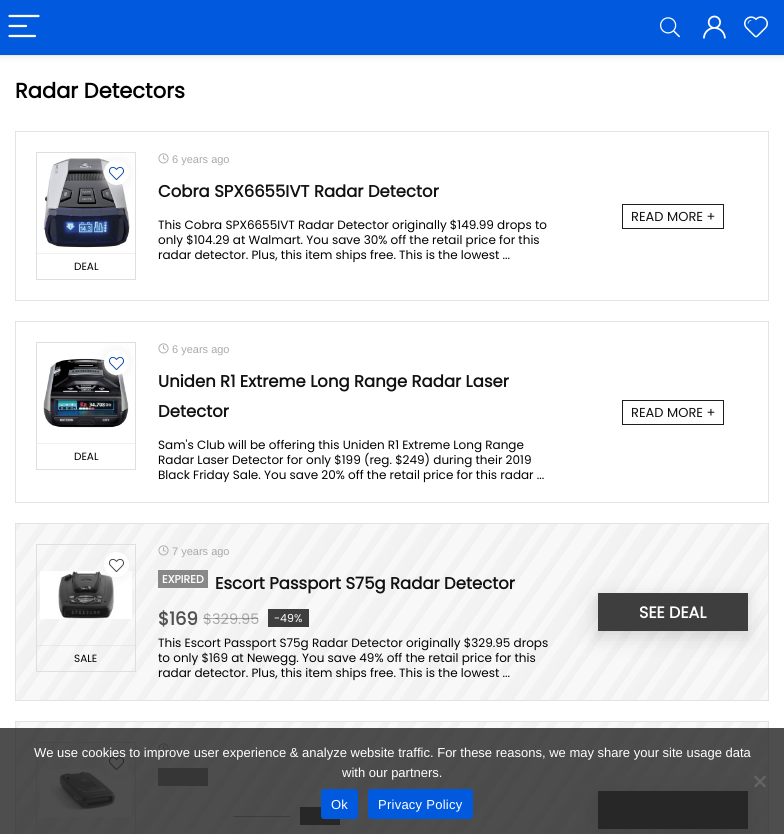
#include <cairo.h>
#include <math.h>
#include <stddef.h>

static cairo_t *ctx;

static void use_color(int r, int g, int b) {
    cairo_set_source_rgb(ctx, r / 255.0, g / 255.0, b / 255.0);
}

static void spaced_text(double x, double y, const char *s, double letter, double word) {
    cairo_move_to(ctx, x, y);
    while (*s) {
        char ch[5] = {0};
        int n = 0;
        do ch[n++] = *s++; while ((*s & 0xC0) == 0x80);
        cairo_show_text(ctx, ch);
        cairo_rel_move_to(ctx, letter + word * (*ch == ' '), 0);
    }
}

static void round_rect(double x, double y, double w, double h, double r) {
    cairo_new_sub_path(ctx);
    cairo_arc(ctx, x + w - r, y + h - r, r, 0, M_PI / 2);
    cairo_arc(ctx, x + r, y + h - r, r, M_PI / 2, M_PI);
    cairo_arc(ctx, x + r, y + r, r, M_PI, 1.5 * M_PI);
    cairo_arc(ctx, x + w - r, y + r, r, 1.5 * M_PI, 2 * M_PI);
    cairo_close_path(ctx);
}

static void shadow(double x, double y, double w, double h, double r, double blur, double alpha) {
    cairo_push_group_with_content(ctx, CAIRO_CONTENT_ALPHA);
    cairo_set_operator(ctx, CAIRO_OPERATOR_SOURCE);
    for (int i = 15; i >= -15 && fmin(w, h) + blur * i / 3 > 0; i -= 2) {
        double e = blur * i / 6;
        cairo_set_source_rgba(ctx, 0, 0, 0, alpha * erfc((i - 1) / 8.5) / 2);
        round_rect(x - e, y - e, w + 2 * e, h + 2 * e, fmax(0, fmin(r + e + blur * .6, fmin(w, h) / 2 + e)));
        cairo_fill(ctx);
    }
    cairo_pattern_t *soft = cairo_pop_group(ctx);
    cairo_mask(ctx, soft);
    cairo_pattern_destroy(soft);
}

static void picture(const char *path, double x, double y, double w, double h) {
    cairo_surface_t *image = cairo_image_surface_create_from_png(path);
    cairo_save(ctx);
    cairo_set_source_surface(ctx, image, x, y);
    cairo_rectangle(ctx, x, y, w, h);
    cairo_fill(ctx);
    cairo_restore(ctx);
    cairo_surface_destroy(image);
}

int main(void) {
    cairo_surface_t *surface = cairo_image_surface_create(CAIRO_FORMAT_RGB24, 784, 834);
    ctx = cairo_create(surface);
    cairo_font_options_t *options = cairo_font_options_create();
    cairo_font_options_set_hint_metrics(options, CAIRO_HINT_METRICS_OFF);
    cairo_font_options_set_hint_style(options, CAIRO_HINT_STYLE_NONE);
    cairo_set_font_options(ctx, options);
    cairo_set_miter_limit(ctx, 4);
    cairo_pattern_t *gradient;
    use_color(255, 255, 255);
    cairo_paint(ctx);
    cairo_rectangle(ctx, -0.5, -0.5, 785, 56);
    use_color(247, 247, 247);
    cairo_set_line_width(ctx, 1);
    cairo_stroke(ctx);
    use_color(0, 0, 0);
    shadow(0, 1, 784, 55, 0, 4, 0.1);
    use_color(1, 89, 222);
    cairo_rectangle(ctx, 0, 0, 784, 55);
    cairo_fill(ctx);
    cairo_new_path(ctx);
    cairo_move_to(ctx, 9.5, 16);
    cairo_line_to(ctx, 38.5, 16);
    cairo_move_to(ctx, 9.5, 26);
    cairo_line_to(ctx, 26, 26);
    cairo_move_to(ctx, 9.5, 36);
    cairo_line_to(ctx, 35, 36);
    use_color(255, 255, 255);
    cairo_set_line_width(ctx, 2.2);
    cairo_set_line_cap(ctx, CAIRO_LINE_CAP_ROUND);
    cairo_stroke(ctx);
    picture("img1.png", 660, 17, 20, 21);
    picture("img2.png", 703, 15, 23, 24);
    picture("img3.png", 744, 16, 24, 22);
    cairo_select_font_face(ctx, "Poppins", CAIRO_FONT_SLANT_NORMAL, CAIRO_FONT_WEIGHT_BOLD);
    cairo_set_font_size(ctx, 21);
    use_color(0, 0, 0);
    cairo_move_to(ctx, 15, 98);
    cairo_show_text(ctx, "Radar Detectors");
    cairo_rectangle(ctx, 15.5, 131.5, 753, 169);
    use_color(227, 227, 227);
    cairo_set_line_width(ctx, 1);
    cairo_set_line_cap(ctx, CAIRO_LINE_CAP_BUTT);
    cairo_stroke(ctx);
    picture("img4.png", 158, 153, 11, 11);
    cairo_select_font_face(ctx, "Liberation Sans", CAIRO_FONT_SLANT_NORMAL, CAIRO_FONT_WEIGHT_NORMAL);
    cairo_set_font_size(ctx, 11);
    use_color(170, 170, 170);
    cairo_move_to(ctx, 172, 163);
    cairo_show_text(ctx, "6 years ago");
    cairo_select_font_face(ctx, "Poppins", CAIRO_FONT_SLANT_NORMAL, CAIRO_FONT_WEIGHT_BOLD);
    cairo_set_font_size(ctx, 16.5);
    use_color(17, 17, 17);
    cairo_move_to(ctx, 158, 197);
    cairo_show_text(ctx, "Cobra SPX6655IVT Radar Detector");
    cairo_rectangle(ctx, 622.5, 204.5, 101, 24);
    use_color(30, 30, 30);
    cairo_stroke(ctx);
    cairo_select_font_face(ctx, "Poppins", CAIRO_FONT_SLANT_NORMAL, CAIRO_FONT_WEIGHT_NORMAL);
    cairo_set_font_size(ctx, 13);
    use_color(17, 17, 17);
    cairo_move_to(ctx, 631, 221);
    cairo_show_text(ctx, "READ MORE +");
    cairo_set_font_size(ctx, 12);
    use_color(0, 0, 0);
    cairo_move_to(ctx, 158, 229);
    cairo_show_text(ctx, "This Cobra SPX6655IVT Radar Detector originally $149.99 drops to");
    cairo_move_to(ctx, 158, 244);
    cairo_show_text(ctx, "only $104.29 at Walmart. You save 30% off the retail price for this");
    cairo_move_to(ctx, 158, 259);
    cairo_show_text(ctx, "radar detector. Plus, this item ships free. This is the lowest ...");
    cairo_rectangle(ctx, 36.5, 152.5, 99, 127);
    use_color(220, 224, 224);
    cairo_stroke(ctx);
    picture("img6.png", 43, 158, 87, 90);
    use_color(239, 239, 239);
    shadow(104, 160, 25, 25, 12.5, 5, 1);
    use_color(255, 255, 255);
    cairo_arc(ctx, 116.5, 172.5, 12.5, 0, 2 * M_PI);
    cairo_fill(ctx);
    picture("img5.png", 109, 166, 15, 14);
    use_color(240, 240, 240);
    cairo_rectangle(ctx, 37, 253, 98, 1);
    cairo_fill(ctx);
    cairo_set_font_size(ctx, 10.5);
    use_color(0, 0, 0);
    cairo_move_to(ctx, 74, 270);
    cairo_show_text(ctx, "DEAL");
    cairo_rectangle(ctx, 15.5, 321.5, 753, 181);
    use_color(227, 227, 227);
    cairo_stroke(ctx);
    picture("img4.png", 158, 343, 11, 11);
    cairo_select_font_face(ctx, "Liberation Sans", CAIRO_FONT_SLANT_NORMAL, CAIRO_FONT_WEIGHT_NORMAL);
    cairo_set_font_size(ctx, 11);
    use_color(170, 170, 170);
    cairo_move_to(ctx, 172, 353);
    cairo_show_text(ctx, "6 years ago");
    cairo_select_font_face(ctx, "Poppins", CAIRO_FONT_SLANT_NORMAL, CAIRO_FONT_WEIGHT_BOLD);
    cairo_set_font_size(ctx, 16.5);
    use_color(17, 17, 17);
    cairo_move_to(ctx, 158, 387);
    cairo_show_text(ctx, "Uniden R1 Extreme Long Range Radar Laser");
    cairo_move_to(ctx, 158, 417);
    cairo_show_text(ctx, "Detector");
    cairo_rectangle(ctx, 622.5, 400.5, 101, 24);
    use_color(30, 30, 30);
    cairo_stroke(ctx);
    cairo_select_font_face(ctx, "Poppins", CAIRO_FONT_SLANT_NORMAL, CAIRO_FONT_WEIGHT_NORMAL);
    cairo_set_font_size(ctx, 13);
    use_color(17, 17, 17);
    cairo_move_to(ctx, 631, 417);
    cairo_show_text(ctx, "READ MORE +");
    cairo_rectangle(ctx, 36.5, 342.5, 99, 127);
    use_color(220, 224, 224);
    cairo_stroke(ctx);
    picture("img7.png", 43, 358, 86, 70);
    use_color(239, 239, 239);
    shadow(104, 350, 25, 25, 12.5, 5, 1);
    use_color(255, 255, 255);
    cairo_arc(ctx, 116.5, 362.5, 12.5, 0, 2 * M_PI);
    cairo_fill(ctx);
    picture("img5.png", 109, 356, 15, 14);
    use_color(240, 240, 240);
    cairo_rectangle(ctx, 37, 443, 98, 1);
    cairo_fill(ctx);
    cairo_set_font_size(ctx, 10.5);
    use_color(0, 0, 0);
    cairo_move_to(ctx, 74, 460);
    cairo_show_text(ctx, "DEAL");
    cairo_set_font_size(ctx, 12);
    cairo_move_to(ctx, 158, 449);
    cairo_show_text(ctx, "Sam's Club will be offering this Uniden R1 Extreme Long Range");
    cairo_move_to(ctx, 158, 464);
    cairo_show_text(ctx, "Radar Laser Detector for only $199 (reg. $249) during their 2019");
    cairo_move_to(ctx, 158, 479);
    cairo_show_text(ctx, "Black Friday Sale. You save 20% off the retail price for this radar ...");
    gradient = cairo_pattern_create_linear(686, 818, 96, 405);
    cairo_pattern_add_color_stop_rgba(gradient, 0, 0.973, 0.973, 0.973, 1);
    cairo_pattern_add_color_stop_rgba(gradient, 0.01, 0.973, 0.973, 0.973, 1);
    cairo_pattern_add_color_stop_rgba(gradient, 0.01, 0.945, 0.945, 0.945, 1);
    cairo_pattern_add_color_stop_rgba(gradient, 0.03, 0.953, 0.953, 0.953, 1);
    cairo_pattern_add_color_stop_rgba(gradient, 0.03, 0.973, 0.973, 0.973, 1);
    cairo_pattern_add_color_stop_rgba(gradient, 0.04, 0.973, 0.973, 0.973, 1);
    cairo_pattern_add_color_stop_rgba(gradient, 0.04, 0.945, 0.945, 0.945, 1);
    cairo_pattern_add_color_stop_rgba(gradient, 0.06, 0.953, 0.953, 0.953, 1);
    cairo_pattern_add_color_stop_rgba(gradient, 0.06, 0.973, 0.973, 0.973, 1);
    cairo_pattern_add_color_stop_rgba(gradient, 0.07, 0.973, 0.973, 0.973, 1);
    cairo_pattern_add_color_stop_rgba(gradient, 0.07, 0.945, 0.945, 0.945, 1);
    cairo_pattern_add_color_stop_rgba(gradient, 0.08, 0.953, 0.953, 0.953, 1);
    cairo_pattern_add_color_stop_rgba(gradient, 0.08, 0.973, 0.973, 0.973, 1);
    cairo_pattern_add_color_stop_rgba(gradient, 0.1, 0.973, 0.973, 0.973, 1);
    cairo_pattern_add_color_stop_rgba(gradient, 0.1, 0.945, 0.945, 0.945, 1);
    cairo_pattern_add_color_stop_rgba(gradient, 0.11, 0.953, 0.953, 0.953, 1);
    cairo_pattern_add_color_stop_rgba(gradient, 0.11, 0.973, 0.973, 0.973, 1);
    cairo_pattern_add_color_stop_rgba(gradient, 0.12, 0.973, 0.973, 0.973, 1);
    cairo_pattern_add_color_stop_rgba(gradient, 0.12, 0.945, 0.945, 0.945, 1);
    cairo_pattern_add_color_stop_rgba(gradient, 0.14, 0.953, 0.953, 0.953, 1);
    cairo_pattern_add_color_stop_rgba(gradient, 0.14, 0.973, 0.973, 0.973, 1);
    cairo_pattern_add_color_stop_rgba(gradient, 0.15, 0.973, 0.973, 0.973, 1);
    cairo_pattern_add_color_stop_rgba(gradient, 0.15, 0.945, 0.945, 0.945, 1);
    cairo_pattern_add_color_stop_rgba(gradient, 0.17, 0.953, 0.953, 0.953, 1);
    cairo_pattern_add_color_stop_rgba(gradient, 0.17, 0.973, 0.973, 0.973, 1);
    cairo_pattern_add_color_stop_rgba(gradient, 0.18, 0.973, 0.973, 0.973, 1);
    cairo_pattern_add_color_stop_rgba(gradient, 0.18, 0.945, 0.945, 0.945, 1);
    cairo_pattern_add_color_stop_rgba(gradient, 0.19, 0.953, 0.953, 0.953, 1);
    cairo_pattern_add_color_stop_rgba(gradient, 0.19, 0.973, 0.973, 0.973, 1);
    cairo_pattern_add_color_stop_rgba(gradient, 0.21, 0.973, 0.973, 0.973, 1);
    cairo_pattern_add_color_stop_rgba(gradient, 0.21, 0.945, 0.945, 0.945, 1);
    cairo_pattern_add_color_stop_rgba(gradient, 0.22, 0.953, 0.953, 0.953, 1);
    cairo_pattern_add_color_stop_rgba(gradient, 0.22, 0.973, 0.973, 0.973, 1);
    cairo_pattern_add_color_stop_rgba(gradient, 0.24, 0.973, 0.973, 0.973, 1);
    cairo_pattern_add_color_stop_rgba(gradient, 0.24, 0.945, 0.945, 0.945, 1);
    cairo_pattern_add_color_stop_rgba(gradient, 0.25, 0.953, 0.953, 0.953, 1);
    cairo_pattern_add_color_stop_rgba(gradient, 0.25, 0.973, 0.973, 0.973, 1);
    cairo_pattern_add_color_stop_rgba(gradient, 0.26, 0.973, 0.973, 0.973, 1);
    cairo_pattern_add_color_stop_rgba(gradient, 0.26, 0.945, 0.945, 0.945, 1);
    cairo_pattern_add_color_stop_rgba(gradient, 0.28, 0.953, 0.953, 0.953, 1);
    cairo_pattern_add_color_stop_rgba(gradient, 0.28, 0.973, 0.973, 0.973, 1);
    cairo_pattern_add_color_stop_rgba(gradient, 0.29, 0.973, 0.973, 0.973, 1);
    cairo_pattern_add_color_stop_rgba(gradient, 0.29, 0.945, 0.945, 0.945, 1);
    cairo_pattern_add_color_stop_rgba(gradient, 0.31, 0.953, 0.953, 0.953, 1);
    cairo_pattern_add_color_stop_rgba(gradient, 0.31, 0.973, 0.973, 0.973, 1);
    cairo_pattern_add_color_stop_rgba(gradient, 0.32, 0.973, 0.973, 0.973, 1);
    cairo_pattern_add_color_stop_rgba(gradient, 0.32, 0.945, 0.945, 0.945, 1);
    cairo_pattern_add_color_stop_rgba(gradient, 0.33, 0.953, 0.953, 0.953, 1);
    cairo_pattern_add_color_stop_rgba(gradient, 0.33, 0.973, 0.973, 0.973, 1);
    cairo_pattern_add_color_stop_rgba(gradient, 0.35, 0.973, 0.973, 0.973, 1);
    cairo_pattern_add_color_stop_rgba(gradient, 0.35, 0.945, 0.945, 0.945, 1);
    cairo_pattern_add_color_stop_rgba(gradient, 0.36, 0.953, 0.953, 0.953, 1);
    cairo_pattern_add_color_stop_rgba(gradient, 0.36, 0.973, 0.973, 0.973, 1);
    cairo_pattern_add_color_stop_rgba(gradient, 0.38, 0.973, 0.973, 0.973, 1);
    cairo_pattern_add_color_stop_rgba(gradient, 0.38, 0.945, 0.945, 0.945, 1);
    cairo_pattern_add_color_stop_rgba(gradient, 0.39, 0.953, 0.953, 0.953, 1);
    cairo_pattern_add_color_stop_rgba(gradient, 0.39, 0.973, 0.973, 0.973, 1);
    cairo_pattern_add_color_stop_rgba(gradient, 0.4, 0.973, 0.973, 0.973, 1);
    cairo_pattern_add_color_stop_rgba(gradient, 0.4, 0.945, 0.945, 0.945, 1);
    cairo_pattern_add_color_stop_rgba(gradient, 0.42, 0.953, 0.953, 0.953, 1);
    cairo_pattern_add_color_stop_rgba(gradient, 0.42, 0.973, 0.973, 0.973, 1);
    cairo_pattern_add_color_stop_rgba(gradient, 0.43, 0.973, 0.973, 0.973, 1);
    cairo_pattern_add_color_stop_rgba(gradient, 0.43, 0.945, 0.945, 0.945, 1);
    cairo_pattern_add_color_stop_rgba(gradient, 0.44, 0.953, 0.953, 0.953, 1);
    cairo_pattern_add_color_stop_rgba(gradient, 0.44, 0.973, 0.973, 0.973, 1);
    cairo_pattern_add_color_stop_rgba(gradient, 0.46, 0.973, 0.973, 0.973, 1);
    cairo_pattern_add_color_stop_rgba(gradient, 0.46, 0.945, 0.945, 0.945, 1);
    cairo_pattern_add_color_stop_rgba(gradient, 0.47, 0.953, 0.953, 0.953, 1);
    cairo_pattern_add_color_stop_rgba(gradient, 0.47, 0.973, 0.973, 0.973, 1);
    cairo_pattern_add_color_stop_rgba(gradient, 0.49, 0.973, 0.973, 0.973, 1);
    cairo_pattern_add_color_stop_rgba(gradient, 0.49, 0.945, 0.945, 0.945, 1);
    cairo_pattern_add_color_stop_rgba(gradient, 0.5, 0.953, 0.953, 0.953, 1);
    cairo_pattern_add_color_stop_rgba(gradient, 0.5, 0.973, 0.973, 0.973, 1);
    cairo_pattern_add_color_stop_rgba(gradient, 0.51, 0.973, 0.973, 0.973, 1);
    cairo_pattern_add_color_stop_rgba(gradient, 0.51, 0.945, 0.945, 0.945, 1);
    cairo_pattern_add_color_stop_rgba(gradient, 0.53, 0.953, 0.953, 0.953, 1);
    cairo_pattern_add_color_stop_rgba(gradient, 0.53, 0.973, 0.973, 0.973, 1);
    cairo_pattern_add_color_stop_rgba(gradient, 0.54, 0.973, 0.973, 0.973, 1);
    cairo_pattern_add_color_stop_rgba(gradient, 0.54, 0.945, 0.945, 0.945, 1);
    cairo_pattern_add_color_stop_rgba(gradient, 0.56, 0.953, 0.953, 0.953, 1);
    cairo_pattern_add_color_stop_rgba(gradient, 0.56, 0.973, 0.973, 0.973, 1);
    cairo_pattern_add_color_stop_rgba(gradient, 0.57, 0.973, 0.973, 0.973, 1);
    cairo_pattern_add_color_stop_rgba(gradient, 0.57, 0.945, 0.945, 0.945, 1);
    cairo_pattern_add_color_stop_rgba(gradient, 0.58, 0.953, 0.953, 0.953, 1);
    cairo_pattern_add_color_stop_rgba(gradient, 0.58, 0.973, 0.973, 0.973, 1);
    cairo_pattern_add_color_stop_rgba(gradient, 0.6, 0.973, 0.973, 0.973, 1);
    cairo_pattern_add_color_stop_rgba(gradient, 0.6, 0.945, 0.945, 0.945, 1);
    cairo_pattern_add_color_stop_rgba(gradient, 0.61, 0.953, 0.953, 0.953, 1);
    cairo_pattern_add_color_stop_rgba(gradient, 0.61, 0.973, 0.973, 0.973, 1);
    cairo_pattern_add_color_stop_rgba(gradient, 0.62, 0.973, 0.973, 0.973, 1);
    cairo_pattern_add_color_stop_rgba(gradient, 0.62, 0.945, 0.945, 0.945, 1);
    cairo_pattern_add_color_stop_rgba(gradient, 0.64, 0.953, 0.953, 0.953, 1);
    cairo_pattern_add_color_stop_rgba(gradient, 0.64, 0.973, 0.973, 0.973, 1);
    cairo_pattern_add_color_stop_rgba(gradient, 0.65, 0.973, 0.973, 0.973, 1);
    cairo_pattern_add_color_stop_rgba(gradient, 0.65, 0.945, 0.945, 0.945, 1);
    cairo_pattern_add_color_stop_rgba(gradient, 0.67, 0.953, 0.953, 0.953, 1);
    cairo_pattern_add_color_stop_rgba(gradient, 0.67, 0.973, 0.973, 0.973, 1);
    cairo_pattern_add_color_stop_rgba(gradient, 0.68, 0.973, 0.973, 0.973, 1);
    cairo_pattern_add_color_stop_rgba(gradient, 0.68, 0.945, 0.945, 0.945, 1);
    cairo_pattern_add_color_stop_rgba(gradient, 0.69, 0.953, 0.953, 0.953, 1);
    cairo_pattern_add_color_stop_rgba(gradient, 0.69, 0.973, 0.973, 0.973, 1);
    cairo_pattern_add_color_stop_rgba(gradient, 0.71, 0.973, 0.973, 0.973, 1);
    cairo_pattern_add_color_stop_rgba(gradient, 0.71, 0.945, 0.945, 0.945, 1);
    cairo_pattern_add_color_stop_rgba(gradient, 0.72, 0.953, 0.953, 0.953, 1);
    cairo_pattern_add_color_stop_rgba(gradient, 0.72, 0.973, 0.973, 0.973, 1);
    cairo_pattern_add_color_stop_rgba(gradient, 0.74, 0.973, 0.973, 0.973, 1);
    cairo_pattern_add_color_stop_rgba(gradient, 0.74, 0.945, 0.945, 0.945, 1);
    cairo_pattern_add_color_stop_rgba(gradient, 0.75, 0.953, 0.953, 0.953, 1);
    cairo_pattern_add_color_stop_rgba(gradient, 0.75, 0.973, 0.973, 0.973, 1);
    cairo_pattern_add_color_stop_rgba(gradient, 0.76, 0.973, 0.973, 0.973, 1);
    cairo_pattern_add_color_stop_rgba(gradient, 0.76, 0.945, 0.945, 0.945, 1);
    cairo_pattern_add_color_stop_rgba(gradient, 0.78, 0.953, 0.953, 0.953, 1);
    cairo_pattern_add_color_stop_rgba(gradient, 0.78, 0.973, 0.973, 0.973, 1);
    cairo_pattern_add_color_stop_rgba(gradient, 0.79, 0.973, 0.973, 0.973, 1);
    cairo_pattern_add_color_stop_rgba(gradient, 0.79, 0.945, 0.945, 0.945, 1);
    cairo_pattern_add_color_stop_rgba(gradient, 0.81, 0.953, 0.953, 0.953, 1);
    cairo_pattern_add_color_stop_rgba(gradient, 0.81, 0.973, 0.973, 0.973, 1);
    cairo_pattern_add_color_stop_rgba(gradient, 0.82, 0.973, 0.973, 0.973, 1);
    cairo_pattern_add_color_stop_rgba(gradient, 0.82, 0.945, 0.945, 0.945, 1);
    cairo_pattern_add_color_stop_rgba(gradient, 0.83, 0.953, 0.953, 0.953, 1);
    cairo_pattern_add_color_stop_rgba(gradient, 0.83, 0.973, 0.973, 0.973, 1);
    cairo_pattern_add_color_stop_rgba(gradient, 0.85, 0.973, 0.973, 0.973, 1);
    cairo_pattern_add_color_stop_rgba(gradient, 0.85, 0.945, 0.945, 0.945, 1);
    cairo_pattern_add_color_stop_rgba(gradient, 0.86, 0.953, 0.953, 0.953, 1);
    cairo_pattern_add_color_stop_rgba(gradient, 0.86, 0.973, 0.973, 0.973, 1);
    cairo_pattern_add_color_stop_rgba(gradient, 0.87, 0.973, 0.973, 0.973, 1);
    cairo_pattern_add_color_stop_rgba(gradient, 0.87, 0.945, 0.945, 0.945, 1);
    cairo_pattern_add_color_stop_rgba(gradient, 0.89, 0.953, 0.953, 0.953, 1);
    cairo_pattern_add_color_stop_rgba(gradient, 0.89, 0.973, 0.973, 0.973, 1);
    cairo_pattern_add_color_stop_rgba(gradient, 0.9, 0.973, 0.973, 0.973, 1);
    cairo_pattern_add_color_stop_rgba(gradient, 0.9, 0.945, 0.945, 0.945, 1);
    cairo_pattern_add_color_stop_rgba(gradient, 0.92, 0.953, 0.953, 0.953, 1);
    cairo_pattern_add_color_stop_rgba(gradient, 0.92, 0.973, 0.973, 0.973, 1);
    cairo_pattern_add_color_stop_rgba(gradient, 0.93, 0.973, 0.973, 0.973, 1);
    cairo_pattern_add_color_stop_rgba(gradient, 0.93, 0.945, 0.945, 0.945, 1);
    cairo_pattern_add_color_stop_rgba(gradient, 0.94, 0.953, 0.953, 0.953, 1);
    cairo_pattern_add_color_stop_rgba(gradient, 0.94, 0.973, 0.973, 0.973, 1);
    cairo_pattern_add_color_stop_rgba(gradient, 0.96, 0.973, 0.973, 0.973, 1);
    cairo_pattern_add_color_stop_rgba(gradient, 0.96, 0.945, 0.945, 0.945, 1);
    cairo_pattern_add_color_stop_rgba(gradient, 0.97, 0.953, 0.953, 0.953, 1);
    cairo_pattern_add_color_stop_rgba(gradient, 0.97, 0.973, 0.973, 0.973, 1);
    cairo_pattern_add_color_stop_rgba(gradient, 0.99, 0.973, 0.973, 0.973, 1);
    cairo_pattern_add_color_stop_rgba(gradient, 0.99, 0.945, 0.945, 0.945, 1);
    cairo_pattern_add_color_stop_rgba(gradient, 1, 0.953, 0.953, 0.953, 1);
    cairo_set_source(ctx, gradient);
    cairo_pattern_destroy(gradient);
    cairo_rectangle(ctx, 16, 524, 752, 176);
    cairo_fill(ctx);
    gradient = cairo_pattern_create_linear(686, 818, 96, 405);
    cairo_pattern_add_color_stop_rgba(gradient, 0, 0.922, 0.922, 0.922, 1);
    cairo_pattern_add_color_stop_rgba(gradient, 0.01, 0.922, 0.922, 0.922, 1);
    cairo_pattern_add_color_stop_rgba(gradient, 0.01, 0.906, 0.906, 0.906, 1);
    cairo_pattern_add_color_stop_rgba(gradient, 0.03, 0.91, 0.91, 0.91, 1);
    cairo_pattern_add_color_stop_rgba(gradient, 0.03, 0.922, 0.922, 0.922, 1);
    cairo_pattern_add_color_stop_rgba(gradient, 0.04, 0.922, 0.922, 0.922, 1);
    cairo_pattern_add_color_stop_rgba(gradient, 0.04, 0.906, 0.906, 0.906, 1);
    cairo_pattern_add_color_stop_rgba(gradient, 0.06, 0.91, 0.91, 0.91, 1);
    cairo_pattern_add_color_stop_rgba(gradient, 0.06, 0.922, 0.922, 0.922, 1);
    cairo_pattern_add_color_stop_rgba(gradient, 0.07, 0.922, 0.922, 0.922, 1);
    cairo_pattern_add_color_stop_rgba(gradient, 0.07, 0.906, 0.906, 0.906, 1);
    cairo_pattern_add_color_stop_rgba(gradient, 0.08, 0.91, 0.91, 0.91, 1);
    cairo_pattern_add_color_stop_rgba(gradient, 0.08, 0.922, 0.922, 0.922, 1);
    cairo_pattern_add_color_stop_rgba(gradient, 0.1, 0.922, 0.922, 0.922, 1);
    cairo_pattern_add_color_stop_rgba(gradient, 0.1, 0.906, 0.906, 0.906, 1);
    cairo_pattern_add_color_stop_rgba(gradient, 0.11, 0.91, 0.91, 0.91, 1);
    cairo_pattern_add_color_stop_rgba(gradient, 0.11, 0.922, 0.922, 0.922, 1);
    cairo_pattern_add_color_stop_rgba(gradient, 0.12, 0.922, 0.922, 0.922, 1);
    cairo_pattern_add_color_stop_rgba(gradient, 0.12, 0.906, 0.906, 0.906, 1);
    cairo_pattern_add_color_stop_rgba(gradient, 0.14, 0.91, 0.91, 0.91, 1);
    cairo_pattern_add_color_stop_rgba(gradient, 0.14, 0.922, 0.922, 0.922, 1);
    cairo_pattern_add_color_stop_rgba(gradient, 0.15, 0.922, 0.922, 0.922, 1);
    cairo_pattern_add_color_stop_rgba(gradient, 0.15, 0.906, 0.906, 0.906, 1);
    cairo_pattern_add_color_stop_rgba(gradient, 0.17, 0.91, 0.91, 0.91, 1);
    cairo_pattern_add_color_stop_rgba(gradient, 0.17, 0.922, 0.922, 0.922, 1);
    cairo_pattern_add_color_stop_rgba(gradient, 0.18, 0.922, 0.922, 0.922, 1);
    cairo_pattern_add_color_stop_rgba(gradient, 0.18, 0.906, 0.906, 0.906, 1);
    cairo_pattern_add_color_stop_rgba(gradient, 0.19, 0.91, 0.91, 0.91, 1);
    cairo_pattern_add_color_stop_rgba(gradient, 0.19, 0.922, 0.922, 0.922, 1);
    cairo_pattern_add_color_stop_rgba(gradient, 0.21, 0.922, 0.922, 0.922, 1);
    cairo_pattern_add_color_stop_rgba(gradient, 0.21, 0.906, 0.906, 0.906, 1);
    cairo_pattern_add_color_stop_rgba(gradient, 0.22, 0.91, 0.91, 0.91, 1);
    cairo_pattern_add_color_stop_rgba(gradient, 0.22, 0.922, 0.922, 0.922, 1);
    cairo_pattern_add_color_stop_rgba(gradient, 0.24, 0.922, 0.922, 0.922, 1);
    cairo_pattern_add_color_stop_rgba(gradient, 0.24, 0.906, 0.906, 0.906, 1);
    cairo_pattern_add_color_stop_rgba(gradient, 0.25, 0.91, 0.91, 0.91, 1);
    cairo_pattern_add_color_stop_rgba(gradient, 0.25, 0.922, 0.922, 0.922, 1);
    cairo_pattern_add_color_stop_rgba(gradient, 0.26, 0.922, 0.922, 0.922, 1);
    cairo_pattern_add_color_stop_rgba(gradient, 0.26, 0.906, 0.906, 0.906, 1);
    cairo_pattern_add_color_stop_rgba(gradient, 0.28, 0.91, 0.91, 0.91, 1);
    cairo_pattern_add_color_stop_rgba(gradient, 0.28, 0.922, 0.922, 0.922, 1);
    cairo_pattern_add_color_stop_rgba(gradient, 0.29, 0.922, 0.922, 0.922, 1);
    cairo_pattern_add_color_stop_rgba(gradient, 0.29, 0.906, 0.906, 0.906, 1);
    cairo_pattern_add_color_stop_rgba(gradient, 0.31, 0.91, 0.91, 0.91, 1);
    cairo_pattern_add_color_stop_rgba(gradient, 0.31, 0.922, 0.922, 0.922, 1);
    cairo_pattern_add_color_stop_rgba(gradient, 0.32, 0.922, 0.922, 0.922, 1);
    cairo_pattern_add_color_stop_rgba(gradient, 0.32, 0.906, 0.906, 0.906, 1);
    cairo_pattern_add_color_stop_rgba(gradient, 0.33, 0.91, 0.91, 0.91, 1);
    cairo_pattern_add_color_stop_rgba(gradient, 0.33, 0.922, 0.922, 0.922, 1);
    cairo_pattern_add_color_stop_rgba(gradient, 0.35, 0.922, 0.922, 0.922, 1);
    cairo_pattern_add_color_stop_rgba(gradient, 0.35, 0.906, 0.906, 0.906, 1);
    cairo_pattern_add_color_stop_rgba(gradient, 0.36, 0.91, 0.91, 0.91, 1);
    cairo_pattern_add_color_stop_rgba(gradient, 0.36, 0.922, 0.922, 0.922, 1);
    cairo_pattern_add_color_stop_rgba(gradient, 0.38, 0.922, 0.922, 0.922, 1);
    cairo_pattern_add_color_stop_rgba(gradient, 0.38, 0.906, 0.906, 0.906, 1);
    cairo_pattern_add_color_stop_rgba(gradient, 0.39, 0.91, 0.91, 0.91, 1);
    cairo_pattern_add_color_stop_rgba(gradient, 0.39, 0.922, 0.922, 0.922, 1);
    cairo_pattern_add_color_stop_rgba(gradient, 0.4, 0.922, 0.922, 0.922, 1);
    cairo_pattern_add_color_stop_rgba(gradient, 0.4, 0.906, 0.906, 0.906, 1);
    cairo_pattern_add_color_stop_rgba(gradient, 0.42, 0.91, 0.91, 0.91, 1);
    cairo_pattern_add_color_stop_rgba(gradient, 0.42, 0.922, 0.922, 0.922, 1);
    cairo_pattern_add_color_stop_rgba(gradient, 0.43, 0.922, 0.922, 0.922, 1);
    cairo_pattern_add_color_stop_rgba(gradient, 0.43, 0.906, 0.906, 0.906, 1);
    cairo_pattern_add_color_stop_rgba(gradient, 0.44, 0.91, 0.91, 0.91, 1);
    cairo_pattern_add_color_stop_rgba(gradient, 0.44, 0.922, 0.922, 0.922, 1);
    cairo_pattern_add_color_stop_rgba(gradient, 0.46, 0.922, 0.922, 0.922, 1);
    cairo_pattern_add_color_stop_rgba(gradient, 0.46, 0.906, 0.906, 0.906, 1);
    cairo_pattern_add_color_stop_rgba(gradient, 0.47, 0.91, 0.91, 0.91, 1);
    cairo_pattern_add_color_stop_rgba(gradient, 0.47, 0.922, 0.922, 0.922, 1);
    cairo_pattern_add_color_stop_rgba(gradient, 0.49, 0.922, 0.922, 0.922, 1);
    cairo_pattern_add_color_stop_rgba(gradient, 0.49, 0.906, 0.906, 0.906, 1);
    cairo_pattern_add_color_stop_rgba(gradient, 0.5, 0.91, 0.91, 0.91, 1);
    cairo_pattern_add_color_stop_rgba(gradient, 0.5, 0.922, 0.922, 0.922, 1);
    cairo_pattern_add_color_stop_rgba(gradient, 0.51, 0.922, 0.922, 0.922, 1);
    cairo_pattern_add_color_stop_rgba(gradient, 0.51, 0.906, 0.906, 0.906, 1);
    cairo_pattern_add_color_stop_rgba(gradient, 0.53, 0.91, 0.91, 0.91, 1);
    cairo_pattern_add_color_stop_rgba(gradient, 0.53, 0.922, 0.922, 0.922, 1);
    cairo_pattern_add_color_stop_rgba(gradient, 0.54, 0.922, 0.922, 0.922, 1);
    cairo_pattern_add_color_stop_rgba(gradient, 0.54, 0.906, 0.906, 0.906, 1);
    cairo_pattern_add_color_stop_rgba(gradient, 0.56, 0.91, 0.91, 0.91, 1);
    cairo_pattern_add_color_stop_rgba(gradient, 0.56, 0.922, 0.922, 0.922, 1);
    cairo_pattern_add_color_stop_rgba(gradient, 0.57, 0.922, 0.922, 0.922, 1);
    cairo_pattern_add_color_stop_rgba(gradient, 0.57, 0.906, 0.906, 0.906, 1);
    cairo_pattern_add_color_stop_rgba(gradient, 0.58, 0.91, 0.91, 0.91, 1);
    cairo_pattern_add_color_stop_rgba(gradient, 0.58, 0.922, 0.922, 0.922, 1);
    cairo_pattern_add_color_stop_rgba(gradient, 0.6, 0.922, 0.922, 0.922, 1);
    cairo_pattern_add_color_stop_rgba(gradient, 0.6, 0.906, 0.906, 0.906, 1);
    cairo_pattern_add_color_stop_rgba(gradient, 0.61, 0.91, 0.91, 0.91, 1);
    cairo_pattern_add_color_stop_rgba(gradient, 0.61, 0.922, 0.922, 0.922, 1);
    cairo_pattern_add_color_stop_rgba(gradient, 0.62, 0.922, 0.922, 0.922, 1);
    cairo_pattern_add_color_stop_rgba(gradient, 0.62, 0.906, 0.906, 0.906, 1);
    cairo_pattern_add_color_stop_rgba(gradient, 0.64, 0.91, 0.91, 0.91, 1);
    cairo_pattern_add_color_stop_rgba(gradient, 0.64, 0.922, 0.922, 0.922, 1);
    cairo_pattern_add_color_stop_rgba(gradient, 0.65, 0.922, 0.922, 0.922, 1);
    cairo_pattern_add_color_stop_rgba(gradient, 0.65, 0.906, 0.906, 0.906, 1);
    cairo_pattern_add_color_stop_rgba(gradient, 0.67, 0.91, 0.91, 0.91, 1);
    cairo_pattern_add_color_stop_rgba(gradient, 0.67, 0.922, 0.922, 0.922, 1);
    cairo_pattern_add_color_stop_rgba(gradient, 0.68, 0.922, 0.922, 0.922, 1);
    cairo_pattern_add_color_stop_rgba(gradient, 0.68, 0.906, 0.906, 0.906, 1);
    cairo_pattern_add_color_stop_rgba(gradient, 0.69, 0.91, 0.91, 0.91, 1);
    cairo_pattern_add_color_stop_rgba(gradient, 0.69, 0.922, 0.922, 0.922, 1);
    cairo_pattern_add_color_stop_rgba(gradient, 0.71, 0.922, 0.922, 0.922, 1);
    cairo_pattern_add_color_stop_rgba(gradient, 0.71, 0.906, 0.906, 0.906, 1);
    cairo_pattern_add_color_stop_rgba(gradient, 0.72, 0.91, 0.91, 0.91, 1);
    cairo_pattern_add_color_stop_rgba(gradient, 0.72, 0.922, 0.922, 0.922, 1);
    cairo_pattern_add_color_stop_rgba(gradient, 0.74, 0.922, 0.922, 0.922, 1);
    cairo_pattern_add_color_stop_rgba(gradient, 0.74, 0.906, 0.906, 0.906, 1);
    cairo_pattern_add_color_stop_rgba(gradient, 0.75, 0.91, 0.91, 0.91, 1);
    cairo_pattern_add_color_stop_rgba(gradient, 0.75, 0.922, 0.922, 0.922, 1);
    cairo_pattern_add_color_stop_rgba(gradient, 0.76, 0.922, 0.922, 0.922, 1);
    cairo_pattern_add_color_stop_rgba(gradient, 0.76, 0.906, 0.906, 0.906, 1);
    cairo_pattern_add_color_stop_rgba(gradient, 0.78, 0.91, 0.91, 0.91, 1);
    cairo_pattern_add_color_stop_rgba(gradient, 0.78, 0.922, 0.922, 0.922, 1);
    cairo_pattern_add_color_stop_rgba(gradient, 0.79, 0.922, 0.922, 0.922, 1);
    cairo_pattern_add_color_stop_rgba(gradient, 0.79, 0.906, 0.906, 0.906, 1);
    cairo_pattern_add_color_stop_rgba(gradient, 0.81, 0.91, 0.91, 0.91, 1);
    cairo_pattern_add_color_stop_rgba(gradient, 0.81, 0.922, 0.922, 0.922, 1);
    cairo_pattern_add_color_stop_rgba(gradient, 0.82, 0.922, 0.922, 0.922, 1);
    cairo_pattern_add_color_stop_rgba(gradient, 0.82, 0.906, 0.906, 0.906, 1);
    cairo_pattern_add_color_stop_rgba(gradient, 0.83, 0.91, 0.91, 0.91, 1);
    cairo_pattern_add_color_stop_rgba(gradient, 0.83, 0.922, 0.922, 0.922, 1);
    cairo_pattern_add_color_stop_rgba(gradient, 0.85, 0.922, 0.922, 0.922, 1);
    cairo_pattern_add_color_stop_rgba(gradient, 0.85, 0.906, 0.906, 0.906, 1);
    cairo_pattern_add_color_stop_rgba(gradient, 0.86, 0.91, 0.91, 0.91, 1);
    cairo_pattern_add_color_stop_rgba(gradient, 0.86, 0.922, 0.922, 0.922, 1);
    cairo_pattern_add_color_stop_rgba(gradient, 0.87, 0.922, 0.922, 0.922, 1);
    cairo_pattern_add_color_stop_rgba(gradient, 0.87, 0.906, 0.906, 0.906, 1);
    cairo_pattern_add_color_stop_rgba(gradient, 0.89, 0.91, 0.91, 0.91, 1);
    cairo_pattern_add_color_stop_rgba(gradient, 0.89, 0.922, 0.922, 0.922, 1);
    cairo_pattern_add_color_stop_rgba(gradient, 0.9, 0.922, 0.922, 0.922, 1);
    cairo_pattern_add_color_stop_rgba(gradient, 0.9, 0.906, 0.906, 0.906, 1);
    cairo_pattern_add_color_stop_rgba(gradient, 0.92, 0.91, 0.91, 0.91, 1);
    cairo_pattern_add_color_stop_rgba(gradient, 0.92, 0.922, 0.922, 0.922, 1);
    cairo_pattern_add_color_stop_rgba(gradient, 0.93, 0.922, 0.922, 0.922, 1);
    cairo_pattern_add_color_stop_rgba(gradient, 0.93, 0.906, 0.906, 0.906, 1);
    cairo_pattern_add_color_stop_rgba(gradient, 0.94, 0.91, 0.91, 0.91, 1);
    cairo_pattern_add_color_stop_rgba(gradient, 0.94, 0.922, 0.922, 0.922, 1);
    cairo_pattern_add_color_stop_rgba(gradient, 0.96, 0.922, 0.922, 0.922, 1);
    cairo_pattern_add_color_stop_rgba(gradient, 0.96, 0.906, 0.906, 0.906, 1);
    cairo_pattern_add_color_stop_rgba(gradient, 0.97, 0.91, 0.91, 0.91, 1);
    cairo_pattern_add_color_stop_rgba(gradient, 0.97, 0.922, 0.922, 0.922, 1);
    cairo_pattern_add_color_stop_rgba(gradient, 0.99, 0.922, 0.922, 0.922, 1);
    cairo_pattern_add_color_stop_rgba(gradient, 0.99, 0.906, 0.906, 0.906, 1);
    cairo_pattern_add_color_stop_rgba(gradient, 1, 0.91, 0.91, 0.91, 1);
    cairo_set_source(ctx, gradient);
    cairo_pattern_destroy(gradient);
    cairo_rectangle(ctx, 37, 645, 98, 1);
    cairo_fill(ctx);
    cairo_rectangle(ctx, 15.5, 523.5, 753, 177);
    use_color(227, 227, 227);
    cairo_stroke(ctx);
    picture("img8.png", 158, 545, 11, 11);
    cairo_select_font_face(ctx, "Liberation Sans", CAIRO_FONT_SLANT_NORMAL, CAIRO_FONT_WEIGHT_NORMAL);
    cairo_set_font_size(ctx, 11);
    use_color(170, 170, 170);
    cairo_move_to(ctx, 172, 555);
    cairo_show_text(ctx, "7 years ago");
    use_color(136, 136, 136);
    cairo_rectangle(ctx, 158, 570, 50, 18);
    cairo_fill(ctx);
    cairo_select_font_face(ctx, "Poppins", CAIRO_FONT_SLANT_NORMAL, CAIRO_FONT_WEIGHT_BOLD);
    use_color(255, 255, 255);
    cairo_move_to(ctx, 162, 583);
    cairo_show_text(ctx, "EXPIRED");
    cairo_set_font_size(ctx, 16.5);
    use_color(17, 17, 17);
    cairo_move_to(ctx, 215, 589);
    cairo_show_text(ctx, "Escort Passport S75g Radar Detector");
    cairo_set_font_size(ctx, 18);
    use_color(80, 80, 80);
    cairo_move_to(ctx, 158, 625);
    cairo_show_text(ctx, "$169");
    cairo_select_font_face(ctx, "Poppins", CAIRO_FONT_SLANT_NORMAL, CAIRO_FONT_WEIGHT_NORMAL);
    cairo_set_font_size(ctx, 14.5);
    use_color(170, 170, 170);
    cairo_move_to(ctx, 203, 624);
    cairo_show_text(ctx, "$329.95");
    cairo_set_source_rgba(ctx, 0.2, 0.2, 0.2, 0.4);
    cairo_rectangle(ctx, 203, 618, 55, 1);
    cairo_fill(ctx);
    use_color(62, 62, 62);
    cairo_rectangle(ctx, 268, 609, 41, 18);
    cairo_fill(ctx);
    cairo_set_font_size(ctx, 11);
    use_color(255, 255, 255);
    cairo_move_to(ctx, 274, 622);
    cairo_show_text(ctx, "-49%");
    use_color(62, 62, 62);
    shadow(597, 599, 150, 38, 0, 9.5, 0.2);
    use_color(62, 62, 62);
    cairo_rectangle(ctx, 598, 593, 150, 38);
    cairo_fill(ctx);
    cairo_select_font_face(ctx, "Poppins", CAIRO_FONT_SLANT_NORMAL, CAIRO_FONT_WEIGHT_BOLD);
    cairo_set_font_size(ctx, 16);
    use_color(255, 255, 255);
    cairo_move_to(ctx, 639, 618);
    cairo_show_text(ctx, "SEE DEAL");
    cairo_rectangle(ctx, 36.5, 544.5, 99, 127);
    use_color(223, 223, 223);
    cairo_stroke(ctx);
    picture("img10.png", 40, 571, 92, 48);
    use_color(239, 239, 239);
    shadow(104, 552, 25, 25, 12.5, 5, 1);
    use_color(255, 255, 255);
    cairo_arc(ctx, 116.5, 564.5, 12.5, 0, 2 * M_PI);
    cairo_fill(ctx);
    picture("img9.png", 109, 558, 15, 14);
    cairo_select_font_face(ctx, "Poppins", CAIRO_FONT_SLANT_NORMAL, CAIRO_FONT_WEIGHT_NORMAL);
    cairo_set_font_size(ctx, 10.5);
    use_color(0, 0, 0);
    cairo_move_to(ctx, 74, 662);
    cairo_show_text(ctx, "SALE");
    cairo_set_font_size(ctx, 12);
    cairo_move_to(ctx, 158, 647);
    cairo_show_text(ctx, "This Escort Passport S75g Radar Detector originally $329.95 drops");
    cairo_move_to(ctx, 158, 662);
    cairo_show_text(ctx, "to only $169 at Newegg. You save 49% off the retail price for this");
    cairo_move_to(ctx, 158, 677);
    cairo_show_text(ctx, "radar detector. Plus, this item ships free. This is the lowest ...");
    gradient = cairo_pattern_create_linear(686, 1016, 96, 603);
    cairo_pattern_add_color_stop_rgba(gradient, 0, 0.973, 0.973, 0.973, 1);
    cairo_pattern_add_color_stop_rgba(gradient, 0.01, 0.973, 0.973, 0.973, 1);
    cairo_pattern_add_color_stop_rgba(gradient, 0.01, 0.945, 0.945, 0.945, 1);
    cairo_pattern_add_color_stop_rgba(gradient, 0.03, 0.953, 0.953, 0.953, 1);
    cairo_pattern_add_color_stop_rgba(gradient, 0.03, 0.973, 0.973, 0.973, 1);
    cairo_pattern_add_color_stop_rgba(gradient, 0.04, 0.973, 0.973, 0.973, 1);
    cairo_pattern_add_color_stop_rgba(gradient, 0.04, 0.945, 0.945, 0.945, 1);
    cairo_pattern_add_color_stop_rgba(gradient, 0.06, 0.953, 0.953, 0.953, 1);
    cairo_pattern_add_color_stop_rgba(gradient, 0.06, 0.973, 0.973, 0.973, 1);
    cairo_pattern_add_color_stop_rgba(gradient, 0.07, 0.973, 0.973, 0.973, 1);
    cairo_pattern_add_color_stop_rgba(gradient, 0.07, 0.945, 0.945, 0.945, 1);
    cairo_pattern_add_color_stop_rgba(gradient, 0.08, 0.953, 0.953, 0.953, 1);
    cairo_pattern_add_color_stop_rgba(gradient, 0.08, 0.973, 0.973, 0.973, 1);
    cairo_pattern_add_color_stop_rgba(gradient, 0.1, 0.973, 0.973, 0.973, 1);
    cairo_pattern_add_color_stop_rgba(gradient, 0.1, 0.945, 0.945, 0.945, 1);
    cairo_pattern_add_color_stop_rgba(gradient, 0.11, 0.953, 0.953, 0.953, 1);
    cairo_pattern_add_color_stop_rgba(gradient, 0.11, 0.973, 0.973, 0.973, 1);
    cairo_pattern_add_color_stop_rgba(gradient, 0.12, 0.973, 0.973, 0.973, 1);
    cairo_pattern_add_color_stop_rgba(gradient, 0.12, 0.945, 0.945, 0.945, 1);
    cairo_pattern_add_color_stop_rgba(gradient, 0.14, 0.953, 0.953, 0.953, 1);
    cairo_pattern_add_color_stop_rgba(gradient, 0.14, 0.973, 0.973, 0.973, 1);
    cairo_pattern_add_color_stop_rgba(gradient, 0.15, 0.973, 0.973, 0.973, 1);
    cairo_pattern_add_color_stop_rgba(gradient, 0.15, 0.945, 0.945, 0.945, 1);
    cairo_pattern_add_color_stop_rgba(gradient, 0.17, 0.953, 0.953, 0.953, 1);
    cairo_pattern_add_color_stop_rgba(gradient, 0.17, 0.973, 0.973, 0.973, 1);
    cairo_pattern_add_color_stop_rgba(gradient, 0.18, 0.973, 0.973, 0.973, 1);
    cairo_pattern_add_color_stop_rgba(gradient, 0.18, 0.945, 0.945, 0.945, 1);
    cairo_pattern_add_color_stop_rgba(gradient, 0.19, 0.953, 0.953, 0.953, 1);
    cairo_pattern_add_color_stop_rgba(gradient, 0.19, 0.973, 0.973, 0.973, 1);
    cairo_pattern_add_color_stop_rgba(gradient, 0.21, 0.973, 0.973, 0.973, 1);
    cairo_pattern_add_color_stop_rgba(gradient, 0.21, 0.945, 0.945, 0.945, 1);
    cairo_pattern_add_color_stop_rgba(gradient, 0.22, 0.953, 0.953, 0.953, 1);
    cairo_pattern_add_color_stop_rgba(gradient, 0.22, 0.973, 0.973, 0.973, 1);
    cairo_pattern_add_color_stop_rgba(gradient, 0.24, 0.973, 0.973, 0.973, 1);
    cairo_pattern_add_color_stop_rgba(gradient, 0.24, 0.945, 0.945, 0.945, 1);
    cairo_pattern_add_color_stop_rgba(gradient, 0.25, 0.953, 0.953, 0.953, 1);
    cairo_pattern_add_color_stop_rgba(gradient, 0.25, 0.973, 0.973, 0.973, 1);
    cairo_pattern_add_color_stop_rgba(gradient, 0.26, 0.973, 0.973, 0.973, 1);
    cairo_pattern_add_color_stop_rgba(gradient, 0.26, 0.945, 0.945, 0.945, 1);
    cairo_pattern_add_color_stop_rgba(gradient, 0.28, 0.953, 0.953, 0.953, 1);
    cairo_pattern_add_color_stop_rgba(gradient, 0.28, 0.973, 0.973, 0.973, 1);
    cairo_pattern_add_color_stop_rgba(gradient, 0.29, 0.973, 0.973, 0.973, 1);
    cairo_pattern_add_color_stop_rgba(gradient, 0.29, 0.945, 0.945, 0.945, 1);
    cairo_pattern_add_color_stop_rgba(gradient, 0.31, 0.953, 0.953, 0.953, 1);
    cairo_pattern_add_color_stop_rgba(gradient, 0.31, 0.973, 0.973, 0.973, 1);
    cairo_pattern_add_color_stop_rgba(gradient, 0.32, 0.973, 0.973, 0.973, 1);
    cairo_pattern_add_color_stop_rgba(gradient, 0.32, 0.945, 0.945, 0.945, 1);
    cairo_pattern_add_color_stop_rgba(gradient, 0.33, 0.953, 0.953, 0.953, 1);
    cairo_pattern_add_color_stop_rgba(gradient, 0.33, 0.973, 0.973, 0.973, 1);
    cairo_pattern_add_color_stop_rgba(gradient, 0.35, 0.973, 0.973, 0.973, 1);
    cairo_pattern_add_color_stop_rgba(gradient, 0.35, 0.945, 0.945, 0.945, 1);
    cairo_pattern_add_color_stop_rgba(gradient, 0.36, 0.953, 0.953, 0.953, 1);
    cairo_pattern_add_color_stop_rgba(gradient, 0.36, 0.973, 0.973, 0.973, 1);
    cairo_pattern_add_color_stop_rgba(gradient, 0.38, 0.973, 0.973, 0.973, 1);
    cairo_pattern_add_color_stop_rgba(gradient, 0.38, 0.945, 0.945, 0.945, 1);
    cairo_pattern_add_color_stop_rgba(gradient, 0.39, 0.953, 0.953, 0.953, 1);
    cairo_pattern_add_color_stop_rgba(gradient, 0.39, 0.973, 0.973, 0.973, 1);
    cairo_pattern_add_color_stop_rgba(gradient, 0.4, 0.973, 0.973, 0.973, 1);
    cairo_pattern_add_color_stop_rgba(gradient, 0.4, 0.945, 0.945, 0.945, 1);
    cairo_pattern_add_color_stop_rgba(gradient, 0.42, 0.953, 0.953, 0.953, 1);
    cairo_pattern_add_color_stop_rgba(gradient, 0.42, 0.973, 0.973, 0.973, 1);
    cairo_pattern_add_color_stop_rgba(gradient, 0.43, 0.973, 0.973, 0.973, 1);
    cairo_pattern_add_color_stop_rgba(gradient, 0.43, 0.945, 0.945, 0.945, 1);
    cairo_pattern_add_color_stop_rgba(gradient, 0.44, 0.953, 0.953, 0.953, 1);
    cairo_pattern_add_color_stop_rgba(gradient, 0.44, 0.973, 0.973, 0.973, 1);
    cairo_pattern_add_color_stop_rgba(gradient, 0.46, 0.973, 0.973, 0.973, 1);
    cairo_pattern_add_color_stop_rgba(gradient, 0.46, 0.945, 0.945, 0.945, 1);
    cairo_pattern_add_color_stop_rgba(gradient, 0.47, 0.953, 0.953, 0.953, 1);
    cairo_pattern_add_color_stop_rgba(gradient, 0.47, 0.973, 0.973, 0.973, 1);
    cairo_pattern_add_color_stop_rgba(gradient, 0.49, 0.973, 0.973, 0.973, 1);
    cairo_pattern_add_color_stop_rgba(gradient, 0.49, 0.945, 0.945, 0.945, 1);
    cairo_pattern_add_color_stop_rgba(gradient, 0.5, 0.953, 0.953, 0.953, 1);
    cairo_pattern_add_color_stop_rgba(gradient, 0.5, 0.973, 0.973, 0.973, 1);
    cairo_pattern_add_color_stop_rgba(gradient, 0.51, 0.973, 0.973, 0.973, 1);
    cairo_pattern_add_color_stop_rgba(gradient, 0.51, 0.945, 0.945, 0.945, 1);
    cairo_pattern_add_color_stop_rgba(gradient, 0.53, 0.953, 0.953, 0.953, 1);
    cairo_pattern_add_color_stop_rgba(gradient, 0.53, 0.973, 0.973, 0.973, 1);
    cairo_pattern_add_color_stop_rgba(gradient, 0.54, 0.973, 0.973, 0.973, 1);
    cairo_pattern_add_color_stop_rgba(gradient, 0.54, 0.945, 0.945, 0.945, 1);
    cairo_pattern_add_color_stop_rgba(gradient, 0.56, 0.953, 0.953, 0.953, 1);
    cairo_pattern_add_color_stop_rgba(gradient, 0.56, 0.973, 0.973, 0.973, 1);
    cairo_pattern_add_color_stop_rgba(gradient, 0.57, 0.973, 0.973, 0.973, 1);
    cairo_pattern_add_color_stop_rgba(gradient, 0.57, 0.945, 0.945, 0.945, 1);
    cairo_pattern_add_color_stop_rgba(gradient, 0.58, 0.953, 0.953, 0.953, 1);
    cairo_pattern_add_color_stop_rgba(gradient, 0.58, 0.973, 0.973, 0.973, 1);
    cairo_pattern_add_color_stop_rgba(gradient, 0.6, 0.973, 0.973, 0.973, 1);
    cairo_pattern_add_color_stop_rgba(gradient, 0.6, 0.945, 0.945, 0.945, 1);
    cairo_pattern_add_color_stop_rgba(gradient, 0.61, 0.953, 0.953, 0.953, 1);
    cairo_pattern_add_color_stop_rgba(gradient, 0.61, 0.973, 0.973, 0.973, 1);
    cairo_pattern_add_color_stop_rgba(gradient, 0.62, 0.973, 0.973, 0.973, 1);
    cairo_pattern_add_color_stop_rgba(gradient, 0.62, 0.945, 0.945, 0.945, 1);
    cairo_pattern_add_color_stop_rgba(gradient, 0.64, 0.953, 0.953, 0.953, 1);
    cairo_pattern_add_color_stop_rgba(gradient, 0.64, 0.973, 0.973, 0.973, 1);
    cairo_pattern_add_color_stop_rgba(gradient, 0.65, 0.973, 0.973, 0.973, 1);
    cairo_pattern_add_color_stop_rgba(gradient, 0.65, 0.945, 0.945, 0.945, 1);
    cairo_pattern_add_color_stop_rgba(gradient, 0.67, 0.953, 0.953, 0.953, 1);
    cairo_pattern_add_color_stop_rgba(gradient, 0.67, 0.973, 0.973, 0.973, 1);
    cairo_pattern_add_color_stop_rgba(gradient, 0.68, 0.973, 0.973, 0.973, 1);
    cairo_pattern_add_color_stop_rgba(gradient, 0.68, 0.945, 0.945, 0.945, 1);
    cairo_pattern_add_color_stop_rgba(gradient, 0.69, 0.953, 0.953, 0.953, 1);
    cairo_pattern_add_color_stop_rgba(gradient, 0.69, 0.973, 0.973, 0.973, 1);
    cairo_pattern_add_color_stop_rgba(gradient, 0.71, 0.973, 0.973, 0.973, 1);
    cairo_pattern_add_color_stop_rgba(gradient, 0.71, 0.945, 0.945, 0.945, 1);
    cairo_pattern_add_color_stop_rgba(gradient, 0.72, 0.953, 0.953, 0.953, 1);
    cairo_pattern_add_color_stop_rgba(gradient, 0.72, 0.973, 0.973, 0.973, 1);
    cairo_pattern_add_color_stop_rgba(gradient, 0.74, 0.973, 0.973, 0.973, 1);
    cairo_pattern_add_color_stop_rgba(gradient, 0.74, 0.945, 0.945, 0.945, 1);
    cairo_pattern_add_color_stop_rgba(gradient, 0.75, 0.953, 0.953, 0.953, 1);
    cairo_pattern_add_color_stop_rgba(gradient, 0.75, 0.973, 0.973, 0.973, 1);
    cairo_pattern_add_color_stop_rgba(gradient, 0.76, 0.973, 0.973, 0.973, 1);
    cairo_pattern_add_color_stop_rgba(gradient, 0.76, 0.945, 0.945, 0.945, 1);
    cairo_pattern_add_color_stop_rgba(gradient, 0.78, 0.953, 0.953, 0.953, 1);
    cairo_pattern_add_color_stop_rgba(gradient, 0.78, 0.973, 0.973, 0.973, 1);
    cairo_pattern_add_color_stop_rgba(gradient, 0.79, 0.973, 0.973, 0.973, 1);
    cairo_pattern_add_color_stop_rgba(gradient, 0.79, 0.945, 0.945, 0.945, 1);
    cairo_pattern_add_color_stop_rgba(gradient, 0.81, 0.953, 0.953, 0.953, 1);
    cairo_pattern_add_color_stop_rgba(gradient, 0.81, 0.973, 0.973, 0.973, 1);
    cairo_pattern_add_color_stop_rgba(gradient, 0.82, 0.973, 0.973, 0.973, 1);
    cairo_pattern_add_color_stop_rgba(gradient, 0.82, 0.945, 0.945, 0.945, 1);
    cairo_pattern_add_color_stop_rgba(gradient, 0.83, 0.953, 0.953, 0.953, 1);
    cairo_pattern_add_color_stop_rgba(gradient, 0.83, 0.973, 0.973, 0.973, 1);
    cairo_pattern_add_color_stop_rgba(gradient, 0.85, 0.973, 0.973, 0.973, 1);
    cairo_pattern_add_color_stop_rgba(gradient, 0.85, 0.945, 0.945, 0.945, 1);
    cairo_pattern_add_color_stop_rgba(gradient, 0.86, 0.953, 0.953, 0.953, 1);
    cairo_pattern_add_color_stop_rgba(gradient, 0.86, 0.973, 0.973, 0.973, 1);
    cairo_pattern_add_color_stop_rgba(gradient, 0.87, 0.973, 0.973, 0.973, 1);
    cairo_pattern_add_color_stop_rgba(gradient, 0.87, 0.945, 0.945, 0.945, 1);
    cairo_pattern_add_color_stop_rgba(gradient, 0.89, 0.953, 0.953, 0.953, 1);
    cairo_pattern_add_color_stop_rgba(gradient, 0.89, 0.973, 0.973, 0.973, 1);
    cairo_pattern_add_color_stop_rgba(gradient, 0.9, 0.973, 0.973, 0.973, 1);
    cairo_pattern_add_color_stop_rgba(gradient, 0.9, 0.945, 0.945, 0.945, 1);
    cairo_pattern_add_color_stop_rgba(gradient, 0.92, 0.953, 0.953, 0.953, 1);
    cairo_pattern_add_color_stop_rgba(gradient, 0.92, 0.973, 0.973, 0.973, 1);
    cairo_pattern_add_color_stop_rgba(gradient, 0.93, 0.973, 0.973, 0.973, 1);
    cairo_pattern_add_color_stop_rgba(gradient, 0.93, 0.945, 0.945, 0.945, 1);
    cairo_pattern_add_color_stop_rgba(gradient, 0.94, 0.953, 0.953, 0.953, 1);
    cairo_pattern_add_color_stop_rgba(gradient, 0.94, 0.973, 0.973, 0.973, 1);
    cairo_pattern_add_color_stop_rgba(gradient, 0.96, 0.973, 0.973, 0.973, 1);
    cairo_pattern_add_color_stop_rgba(gradient, 0.96, 0.945, 0.945, 0.945, 1);
    cairo_pattern_add_color_stop_rgba(gradient, 0.97, 0.953, 0.953, 0.953, 1);
    cairo_pattern_add_color_stop_rgba(gradient, 0.97, 0.973, 0.973, 0.973, 1);
    cairo_pattern_add_color_stop_rgba(gradient, 0.99, 0.973, 0.973, 0.973, 1);
    cairo_pattern_add_color_stop_rgba(gradient, 0.99, 0.945, 0.945, 0.945, 1);
    cairo_pattern_add_color_stop_rgba(gradient, 1, 0.953, 0.953, 0.953, 1);
    cairo_set_source(ctx, gradient);
    cairo_pattern_destroy(gradient);
    cairo_rectangle(ctx, 16, 722, 752, 112);
    cairo_fill(ctx);
    cairo_rectangle(ctx, 15.5, 721.5, 753, 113);
    use_color(227, 227, 227);
    cairo_stroke(ctx);
    cairo_rectangle(ctx, 36.5, 742.5, 99, 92);
    use_color(223, 223, 223);
    cairo_stroke(ctx);
    picture("img11.png", 40, 769, 92, 48);
    use_color(239, 239, 239);
    shadow(104, 750, 25, 25, 12.5, 5, 1);
    use_color(255, 255, 255);
    cairo_arc(ctx, 116.5, 762.5, 12.5, 0, 2 * M_PI);
    cairo_fill(ctx);
    picture("img9.png", 109, 756, 15, 14);
    picture("img8.png", 158, 743, 11, 11);
    use_color(136, 136, 136);
    cairo_rectangle(ctx, 158, 768, 50, 18);
    cairo_fill(ctx);
    cairo_set_source_rgba(ctx, 0.2, 0.2, 0.2, 0.4);
    cairo_rectangle(ctx, 233, 816, 57, 1);
    cairo_fill(ctx);
    use_color(62, 62, 62);
    cairo_rectangle(ctx, 300, 807, 40, 18);
    cairo_fill(ctx);
    use_color(62, 62, 62);
    shadow(597, 797, 150, 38, 0, 9.5, 0.2);
    use_color(62, 62, 62);
    cairo_rectangle(ctx, 598, 791, 150, 38);
    cairo_fill(ctx);
    cairo_set_source_rgba(ctx, 0.133, 0.133, 0.133, 0.8);
    cairo_rectangle(ctx, 0, 728, 784, 106);
    cairo_fill(ctx);
    cairo_select_font_face(ctx, "Liberation Sans", CAIRO_FONT_SLANT_NORMAL, CAIRO_FONT_WEIGHT_NORMAL);
    cairo_set_font_size(ctx, 13);
    use_color(255, 255, 255);
    cairo_move_to(ctx, 34, 757);
    cairo_show_text(ctx, "We use cookies to improve user experience & analyze website traffic. For these reasons, we may share your site usage data");
    cairo_move_to(ctx, 342, 777);
    cairo_show_text(ctx, "with our partners.");
    use_color(102, 102, 102);
    cairo_new_path(ctx);
    cairo_move_to(ctx, 764.5, 775.5);
    cairo_line_to(ctx, 766, 777);
    cairo_line_to(ctx, 755.5, 787.5);
    cairo_line_to(ctx, 754, 786);
    cairo_close_path(ctx);
    cairo_fill(ctx);
    cairo_new_path(ctx);
    cairo_move_to(ctx, 754, 777);
    cairo_line_to(ctx, 755.5, 775.5);
    cairo_line_to(ctx, 766, 786);
    cairo_line_to(ctx, 764.5, 787.5);
    cairo_close_path(ctx);
    cairo_fill(ctx);
    use_color(1, 89, 222);
    round_rect(321, 789, 37, 30, 3);
    cairo_fill(ctx);
    use_color(255, 255, 255);
    spaced_text(331, 809, "Ok", 0.25, 0);
    use_color(1, 89, 222);
    round_rect(368, 789, 105, 30, 3);
    cairo_fill(ctx);
    use_color(255, 255, 255);
    spaced_text(378, 809, "Privacy Policy", 0.25, 0);
    cairo_surface_write_to_png(surface, "result.png");
    cairo_font_options_destroy(options);
    cairo_destroy(ctx);
    cairo_surface_destroy(surface);
    return 0;
}
